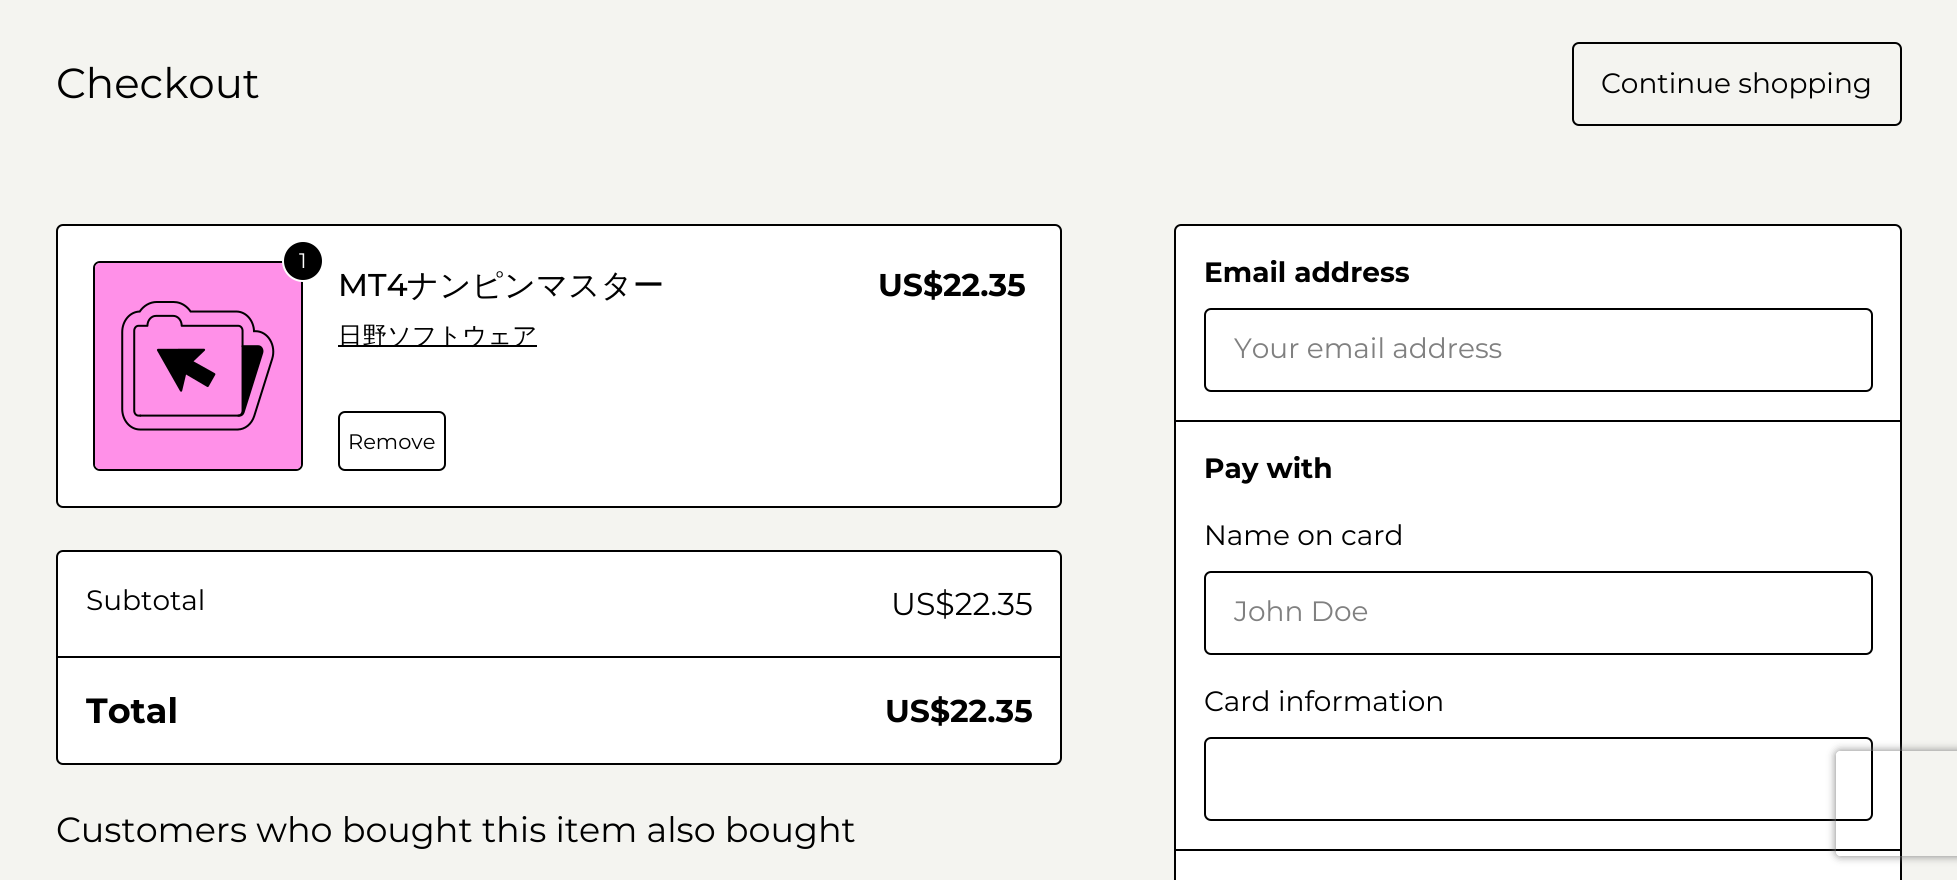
#include <cairo.h>
#include <math.h>
#include <stddef.h>

static cairo_t *ctx;

static void use_color(int r, int g, int b) {
    cairo_set_source_rgb(ctx, r / 255.0, g / 255.0, b / 255.0);
}

static void round_rect(double x, double y, double w, double h, double r) {
    cairo_new_sub_path(ctx);
    cairo_arc(ctx, x + w - r, y + h - r, r, 0, M_PI / 2);
    cairo_arc(ctx, x + r, y + h - r, r, M_PI / 2, M_PI);
    cairo_arc(ctx, x + r, y + r, r, M_PI, 1.5 * M_PI);
    cairo_arc(ctx, x + w - r, y + r, r, 1.5 * M_PI, 2 * M_PI);
    cairo_close_path(ctx);
}

static void shadow(double x, double y, double w, double h, double r, double blur, double alpha) {
    cairo_push_group_with_content(ctx, CAIRO_CONTENT_ALPHA);
    cairo_set_operator(ctx, CAIRO_OPERATOR_SOURCE);
    for (int i = 15; i >= -15 && fmin(w, h) + blur * i / 3 > 0; i -= 2) {
        double e = blur * i / 6;
        cairo_set_source_rgba(ctx, 0, 0, 0, alpha * erfc((i - 1) / 8.5) / 2);
        round_rect(x - e, y - e, w + 2 * e, h + 2 * e, fmax(0, fmin(r + e + blur * .6, fmin(w, h) / 2 + e)));
        cairo_fill(ctx);
    }
    cairo_pattern_t *soft = cairo_pop_group(ctx);
    cairo_mask(ctx, soft);
    cairo_pattern_destroy(soft);
}

static void picture(const char *path, double x, double y, double w, double h) {
    cairo_surface_t *image = cairo_image_surface_create_from_png(path);
    cairo_save(ctx);
    cairo_set_source_surface(ctx, image, x, y);
    cairo_rectangle(ctx, x, y, w, h);
    cairo_fill(ctx);
    cairo_restore(ctx);
    cairo_surface_destroy(image);
}

int main(void) {
    cairo_surface_t *surface = cairo_image_surface_create(CAIRO_FORMAT_RGB24, 1957, 880);
    ctx = cairo_create(surface);
    cairo_font_options_t *options = cairo_font_options_create();
    cairo_font_options_set_hint_metrics(options, CAIRO_HINT_METRICS_OFF);
    cairo_font_options_set_hint_style(options, CAIRO_HINT_STYLE_NONE);
    cairo_set_font_options(ctx, options);
    cairo_set_miter_limit(ctx, 4);
    use_color(244, 244, 240);
    cairo_paint(ctx);
    cairo_select_font_face(ctx, "Montserrat", CAIRO_FONT_SLANT_NORMAL, CAIRO_FONT_WEIGHT_NORMAL);
    cairo_set_font_size(ctx, 42);
    use_color(0, 0, 0);
    cairo_move_to(ctx, 56, 98);
    cairo_show_text(ctx, "Checkout");
    round_rect(1573, 43, 328, 82, 6);
    cairo_stroke(ctx);
    cairo_set_font_size(ctx, 28);
    cairo_move_to(ctx, 1601, 93);
    cairo_show_text(ctx, "Continue shopping");
    use_color(255, 255, 255);
    round_rect(57, 225, 1004, 282, 6);
    cairo_fill_preserve(ctx);
    use_color(0, 0, 0);
    cairo_stroke(ctx);
    round_rect(94, 262, 208, 208, 6);
    cairo_stroke(ctx);
    picture("img1.png", 95, 263, 206, 206);
    cairo_arc(ctx, 303, 261, 20, 0, 2 * M_PI);
    cairo_fill_preserve(ctx);
    use_color(255, 255, 255);
    cairo_stroke(ctx);
    cairo_set_font_size(ctx, 21);
    cairo_move_to(ctx, 299, 268);
    cairo_show_text(ctx, "1");
    cairo_select_font_face(ctx, "Montserrat Medium", CAIRO_FONT_SLANT_NORMAL, CAIRO_FONT_WEIGHT_NORMAL);
    cairo_set_font_size(ctx, 31.5);
    use_color(0, 0, 0);
    cairo_move_to(ctx, 338, 296);
    cairo_show_text(ctx, "MT4");
    cairo_select_font_face(ctx, "WenQuanYi Zen Hei Medium", CAIRO_FONT_SLANT_NORMAL, CAIRO_FONT_WEIGHT_NORMAL);
    cairo_move_to(ctx, 407, 296);
    cairo_show_text(ctx, "ナンピンマスター");
    cairo_rectangle(ctx, 338, 345, 199, 2);
    cairo_fill(ctx);
    cairo_set_font_size(ctx, 24.5);
    cairo_move_to(ctx, 338, 344);
    cairo_show_text(ctx, "日野ソフトウェア");
    round_rect(339, 412, 106, 58, 6);
    cairo_stroke(ctx);
    cairo_select_font_face(ctx, "Montserrat", CAIRO_FONT_SLANT_NORMAL, CAIRO_FONT_WEIGHT_NORMAL);
    cairo_set_font_size(ctx, 21);
    cairo_move_to(ctx, 348, 449);
    cairo_show_text(ctx, "Remove");
    cairo_select_font_face(ctx, "Montserrat", CAIRO_FONT_SLANT_NORMAL, CAIRO_FONT_WEIGHT_BOLD);
    cairo_set_font_size(ctx, 31.5);
    cairo_move_to(ctx, 878, 296);
    cairo_show_text(ctx, "US$22.35");
    use_color(255, 255, 255);
    round_rect(57, 551, 1004, 213, 6);
    cairo_fill_preserve(ctx);
    use_color(0, 0, 0);
    cairo_stroke(ctx);
    cairo_select_font_face(ctx, "Montserrat", CAIRO_FONT_SLANT_NORMAL, CAIRO_FONT_WEIGHT_NORMAL);
    cairo_set_font_size(ctx, 28);
    cairo_move_to(ctx, 86, 610);
    cairo_show_text(ctx, "Subtotal");
    cairo_set_font_size(ctx, 31.5);
    cairo_move_to(ctx, 891, 615);
    cairo_show_text(ctx, "US$22.35");
    cairo_rectangle(ctx, 58, 656, 1003, 2);
    cairo_fill(ctx);
    cairo_select_font_face(ctx, "Montserrat", CAIRO_FONT_SLANT_NORMAL, CAIRO_FONT_WEIGHT_BOLD);
    cairo_set_font_size(ctx, 35);
    cairo_move_to(ctx, 86, 723);
    cairo_show_text(ctx, "Total");
    cairo_set_font_size(ctx, 31.5);
    cairo_move_to(ctx, 885, 722);
    cairo_show_text(ctx, "US$22.35");
    cairo_select_font_face(ctx, "Montserrat", CAIRO_FONT_SLANT_NORMAL, CAIRO_FONT_WEIGHT_NORMAL);
    cairo_set_font_size(ctx, 35);
    cairo_move_to(ctx, 56, 842);
    cairo_show_text(ctx, "Customers who bought this item also bought");
    use_color(255, 255, 255);
    cairo_new_path(ctx);
    cairo_move_to(ctx, 1181, 224);
    cairo_line_to(ctx, 1895, 224);
    cairo_curve_to(ctx, 1899, 224, 1902, 227, 1902, 231);
    cairo_line_to(ctx, 1902, 880);
    cairo_line_to(ctx, 1174, 880);
    cairo_line_to(ctx, 1174, 231);
    cairo_curve_to(ctx, 1174, 227, 1177, 224, 1181, 224);
    cairo_close_path(ctx);
    cairo_fill(ctx);
    round_rect(1175, 225, 726, 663, 6);
    use_color(0, 0, 0);
    cairo_stroke(ctx);
    cairo_select_font_face(ctx, "Montserrat", CAIRO_FONT_SLANT_NORMAL, CAIRO_FONT_WEIGHT_BOLD);
    cairo_set_font_size(ctx, 28);
    cairo_move_to(ctx, 1204, 282);
    cairo_show_text(ctx, "Email address");
    round_rect(1205, 309, 667, 82, 6);
    cairo_stroke(ctx);
    cairo_select_font_face(ctx, "Montserrat", CAIRO_FONT_SLANT_NORMAL, CAIRO_FONT_WEIGHT_NORMAL);
    use_color(128, 128, 128);
    cairo_move_to(ctx, 1234, 358);
    cairo_show_text(ctx, "Your email address");
    use_color(0, 0, 0);
    cairo_rectangle(ctx, 1176, 420, 725, 2);
    cairo_fill(ctx);
    cairo_select_font_face(ctx, "Montserrat", CAIRO_FONT_SLANT_NORMAL, CAIRO_FONT_WEIGHT_BOLD);
    cairo_move_to(ctx, 1204, 478);
    cairo_show_text(ctx, "Pay with");
    cairo_select_font_face(ctx, "Montserrat", CAIRO_FONT_SLANT_NORMAL, CAIRO_FONT_WEIGHT_NORMAL);
    cairo_move_to(ctx, 1204, 545);
    cairo_show_text(ctx, "Name on card");
    round_rect(1205, 572, 667, 82, 6);
    cairo_stroke(ctx);
    use_color(128, 128, 128);
    cairo_move_to(ctx, 1234, 621);
    cairo_show_text(ctx, "John Doe");
    use_color(0, 0, 0);
    cairo_move_to(ctx, 1204, 711);
    cairo_show_text(ctx, "Card information");
    round_rect(1205, 738, 667, 82, 6);
    cairo_stroke(ctx);
    cairo_rectangle(ctx, 1176, 849, 725, 2);
    cairo_fill(ctx);
    cairo_save(ctx);
    cairo_set_fill_rule(ctx, CAIRO_FILL_RULE_EVEN_ODD);
    cairo_new_path(ctx);
    cairo_move_to(ctx, 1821, 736);
    cairo_line_to(ctx, 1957, 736);
    cairo_line_to(ctx, 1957, 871);
    cairo_line_to(ctx, 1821, 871);
    cairo_close_path(ctx);
    cairo_move_to(ctx, 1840, 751);
    cairo_line_to(ctx, 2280, 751);
    cairo_curve_to(ctx, 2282, 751, 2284, 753, 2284, 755);
    cairo_line_to(ctx, 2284, 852);
    cairo_curve_to(ctx, 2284, 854, 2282, 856, 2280, 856);
    cairo_line_to(ctx, 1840, 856);
    cairo_curve_to(ctx, 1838, 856, 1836, 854, 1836, 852);
    cairo_line_to(ctx, 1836, 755);
    cairo_curve_to(ctx, 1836, 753, 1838, 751, 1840, 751);
    cairo_close_path(ctx);
    cairo_clip(ctx);
    use_color(128, 128, 128);
    shadow(1836, 751, 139, 105, 4, 4.5, 1);
    cairo_restore(ctx);
    cairo_surface_write_to_png(surface, "result.png");
    cairo_font_options_destroy(options);
    cairo_destroy(ctx);
    cairo_surface_destroy(surface);
    return 0;
}
